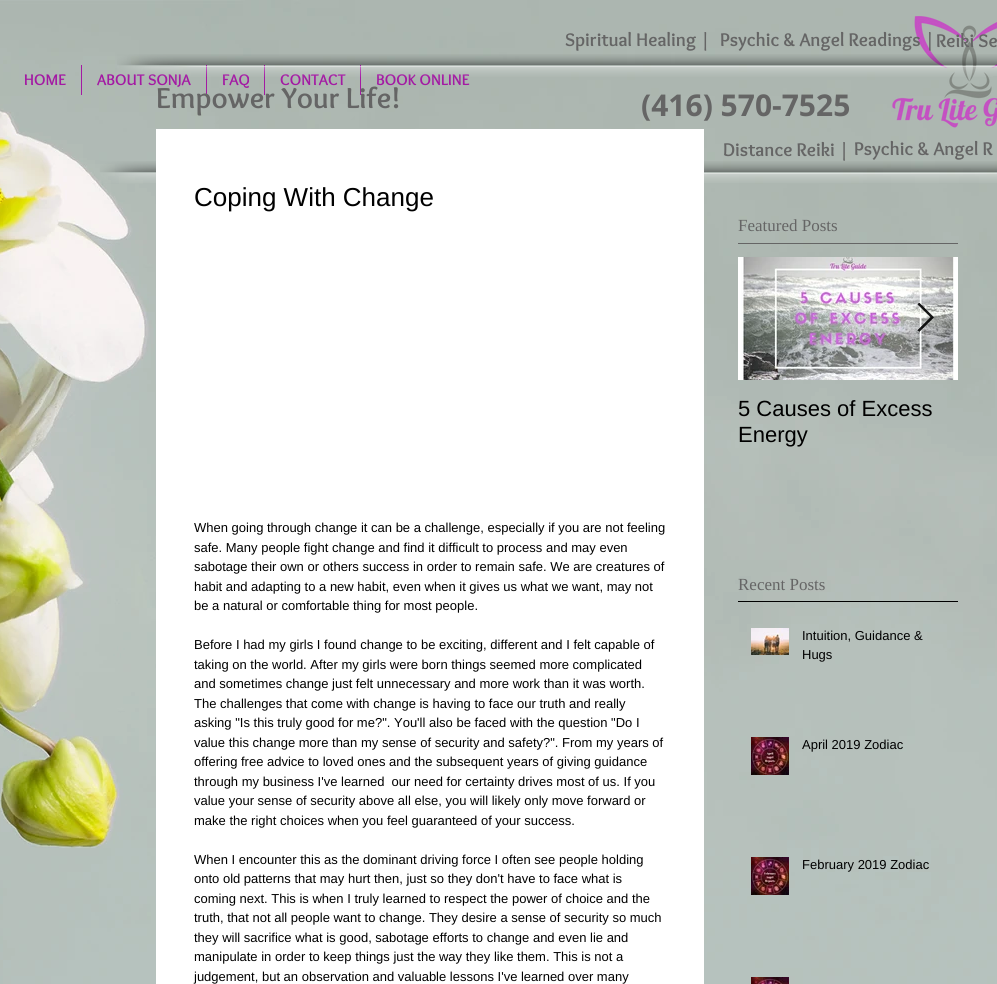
#include <cairo.h>
#include <math.h>
#include <stddef.h>

static cairo_t *ctx;

static void use_color(int r, int g, int b) {
    cairo_set_source_rgb(ctx, r / 255.0, g / 255.0, b / 255.0);
}

static void picture(const char *path, double x, double y, double w, double h) {
    cairo_surface_t *image = cairo_image_surface_create_from_png(path);
    cairo_save(ctx);
    cairo_set_source_surface(ctx, image, x, y);
    cairo_rectangle(ctx, x, y, w, h);
    cairo_fill(ctx);
    cairo_restore(ctx);
    cairo_surface_destroy(image);
}

int main(void) {
    cairo_surface_t *surface = cairo_image_surface_create(CAIRO_FORMAT_RGB24, 997, 984);
    ctx = cairo_create(surface);
    cairo_font_options_t *options = cairo_font_options_create();
    cairo_font_options_set_hint_metrics(options, CAIRO_HINT_METRICS_OFF);
    cairo_font_options_set_hint_style(options, CAIRO_HINT_STYLE_NONE);
    cairo_set_font_options(ctx, options);
    cairo_set_miter_limit(ctx, 4);
    use_color(255, 255, 255);
    cairo_paint(ctx);
    picture("img1.png", 0, 0, 997, 984);
    cairo_select_font_face(ctx, "Overlock", CAIRO_FONT_SLANT_NORMAL, CAIRO_FONT_WEIGHT_BOLD);
    cairo_set_font_size(ctx, 19);
    use_color(101, 101, 101);
    cairo_move_to(ctx, 565, 46);
    cairo_show_text(ctx, "Spiritual Healing |");
    picture("img11.png", 892, 16, 105, 112);
    cairo_move_to(ctx, 720, 46);
    cairo_show_text(ctx, "Psychic & Angel Readings |");
    cairo_move_to(ctx, 936, 47);
    cairo_show_text(ctx, "Reiki Se");
    cairo_set_font_size(ctx, 16);
    use_color(163, 26, 163);
    cairo_move_to(ctx, 97, 85);
    cairo_show_text(ctx, "ABOUT SONJA");
    cairo_rectangle(ctx, 206, 65, 1, 30);
    cairo_fill(ctx);
    picture("img2.png", 117, 54, 97, 23);
    cairo_move_to(ctx, 222, 85);
    cairo_show_text(ctx, "FAQ");
    cairo_rectangle(ctx, 264, 65, 1, 30);
    cairo_fill(ctx);
    cairo_move_to(ctx, 280, 85);
    cairo_show_text(ctx, "CONTACT");
    cairo_rectangle(ctx, 360, 65, 1, 30);
    cairo_fill(ctx);
    cairo_move_to(ctx, 376, 85);
    cairo_show_text(ctx, "BOOK ONLINE");
    picture("img3.png", 214, 54, 779, 23);
    picture("img4.png", 993, 54, 4, 22);
    cairo_set_font_size(ctx, 30);
    use_color(101, 101, 101);
    cairo_move_to(ctx, 156, 108);
    cairo_show_text(ctx, "Empower Your Life!");
    use_color(255, 255, 255);
    cairo_rectangle(ctx, 156, 129, 548, 855);
    cairo_fill(ctx);
    cairo_select_font_face(ctx, "Liberation Sans", CAIRO_FONT_SLANT_NORMAL, CAIRO_FONT_WEIGHT_NORMAL);
    cairo_set_font_size(ctx, 26);
    use_color(0, 0, 0);
    cairo_move_to(ctx, 194, 206);
    cairo_show_text(ctx, "Coping With Change");
    cairo_set_font_size(ctx, 13);
    cairo_move_to(ctx, 194, 532);
    cairo_show_text(ctx, "When going through change it can be a challenge, especially if you are not feeling");
    cairo_move_to(ctx, 194, 552);
    cairo_show_text(ctx, "safe. Many people fight change and find it difficult to process and may even");
    cairo_move_to(ctx, 194, 571);
    cairo_show_text(ctx, "sabotage their own or others success in order to remain safe. We are creatures of");
    cairo_move_to(ctx, 194, 591);
    cairo_show_text(ctx, "habit and adapting to a new habit, even when it gives us what we want, may not");
    cairo_move_to(ctx, 194, 610);
    cairo_show_text(ctx, "be a natural or comfortable thing for most people.");
    cairo_move_to(ctx, 194, 649);
    cairo_show_text(ctx, "Before I had my girls I found change to be exciting, different and I felt capable of");
    cairo_move_to(ctx, 194, 669);
    cairo_show_text(ctx, "taking on the world. After my girls were born things seemed more complicated");
    cairo_move_to(ctx, 194, 688);
    cairo_show_text(ctx, "and sometimes change just felt unnecessary and more work than it was worth.");
    cairo_move_to(ctx, 194, 708);
    cairo_show_text(ctx, "The challenges that come with change is having to face our truth and really");
    cairo_move_to(ctx, 194, 727);
    cairo_show_text(ctx, "asking \"Is this truly good for me?\". You'll also be faced with the question \"Do I");
    cairo_move_to(ctx, 194, 747);
    cairo_show_text(ctx, "value this change more than my sense of security and safety?\". From my years of");
    cairo_move_to(ctx, 194, 766);
    cairo_show_text(ctx, "offering free advice to loved ones and the subsequent years of giving guidance");
    cairo_move_to(ctx, 194, 786);
    cairo_show_text(ctx, "through my business I've learned  our need for certainty drives most of us. If you");
    cairo_move_to(ctx, 194, 805);
    cairo_show_text(ctx, "value your sense of security above all else, you will likely only move forward or");
    cairo_move_to(ctx, 194, 825);
    cairo_show_text(ctx, "make the right choices when you feel guaranteed of your success.");
    cairo_move_to(ctx, 194, 864);
    cairo_show_text(ctx, "When I encounter this as the dominant driving force I often see people holding");
    cairo_move_to(ctx, 194, 883);
    cairo_show_text(ctx, "onto old patterns that may hurt then, just so they don't have to face what is");
    cairo_move_to(ctx, 194, 903);
    cairo_show_text(ctx, "coming next. This is when I truly learned to respect the power of choice and the");
    cairo_move_to(ctx, 194, 922);
    cairo_show_text(ctx, "truth, that not all people want to change. They desire a sense of security so much");
    cairo_move_to(ctx, 194, 942);
    cairo_show_text(ctx, "they will sacrifice what is good, sabotage efforts to change and even lie and");
    cairo_move_to(ctx, 194, 961);
    cairo_show_text(ctx, "manipulate in order to keep things just the way they like them. This is not a");
    cairo_move_to(ctx, 194, 981);
    cairo_show_text(ctx, "judgement, but an observation and valuable lessons I've learned over many");
    cairo_select_font_face(ctx, "Liberation Serif", CAIRO_FONT_SLANT_NORMAL, CAIRO_FONT_WEIGHT_NORMAL);
    cairo_set_font_size(ctx, 17);
    use_color(101, 101, 101);
    cairo_move_to(ctx, 738, 231);
    cairo_show_text(ctx, "Featured Posts");
    cairo_rectangle(ctx, 738, 243, 220, 1);
    cairo_fill(ctx);
    picture("img6.png", 738, 257, 220, 123);
    picture("img5.png", 917, 303, 17, 29);
    cairo_select_font_face(ctx, "Liberation Sans", CAIRO_FONT_SLANT_NORMAL, CAIRO_FONT_WEIGHT_NORMAL);
    cairo_set_font_size(ctx, 22);
    use_color(0, 0, 0);
    cairo_move_to(ctx, 738, 416);
    cairo_show_text(ctx, "5 Causes of Excess");
    cairo_move_to(ctx, 738, 442);
    cairo_show_text(ctx, "Energy");
    cairo_select_font_face(ctx, "Liberation Serif", CAIRO_FONT_SLANT_NORMAL, CAIRO_FONT_WEIGHT_NORMAL);
    cairo_set_font_size(ctx, 17);
    use_color(101, 101, 101);
    cairo_move_to(ctx, 738, 590);
    cairo_show_text(ctx, "Recent Posts");
    use_color(0, 0, 0);
    cairo_rectangle(ctx, 738, 601, 220, 1);
    cairo_fill(ctx);
    picture("img7.png", 751, 628, 38, 27);
    cairo_select_font_face(ctx, "Liberation Sans", CAIRO_FONT_SLANT_NORMAL, CAIRO_FONT_WEIGHT_NORMAL);
    cairo_set_font_size(ctx, 13);
    cairo_move_to(ctx, 802, 640);
    cairo_show_text(ctx, "Intuition, Guidance &");
    cairo_move_to(ctx, 802, 659);
    cairo_show_text(ctx, "Hugs");
    picture("img8.png", 751, 737, 38, 38);
    cairo_move_to(ctx, 802, 749);
    cairo_show_text(ctx, "April 2019 Zodiac");
    picture("img9.png", 751, 857, 38, 38);
    cairo_move_to(ctx, 802, 869);
    cairo_show_text(ctx, "February 2019 Zodiac");
    picture("img10.png", 751, 977, 38, 7);
    cairo_select_font_face(ctx, "Overlock", CAIRO_FONT_SLANT_NORMAL, CAIRO_FONT_WEIGHT_BOLD);
    cairo_set_font_size(ctx, 16);
    use_color(163, 26, 163);
    cairo_move_to(ctx, 24, 85);
    cairo_show_text(ctx, "HOME");
    cairo_rectangle(ctx, 81, 65, 1, 30);
    cairo_fill(ctx);
    cairo_select_font_face(ctx, "Open Sans", CAIRO_FONT_SLANT_NORMAL, CAIRO_FONT_WEIGHT_BOLD);
    cairo_set_font_size(ctx, 30);
    use_color(101, 101, 101);
    cairo_move_to(ctx, 641, 116);
    cairo_show_text(ctx, "(416) 570-7525");
    cairo_select_font_face(ctx, "Overlock", CAIRO_FONT_SLANT_NORMAL, CAIRO_FONT_WEIGHT_BOLD);
    cairo_set_font_size(ctx, 19);
    cairo_move_to(ctx, 723, 156);
    cairo_show_text(ctx, "Distance Reiki |");
    cairo_move_to(ctx, 854, 155);
    cairo_show_text(ctx, "Psychic & Angel R");
    picture("img12.png", 100, 161, 56, 22);
    picture("img13.png", 704, 161, 272, 22);
    picture("img14.png", 976, 161, 21, 22);
    cairo_surface_write_to_png(surface, "result.png");
    cairo_font_options_destroy(options);
    cairo_destroy(ctx);
    cairo_surface_destroy(surface);
    return 0;
}
